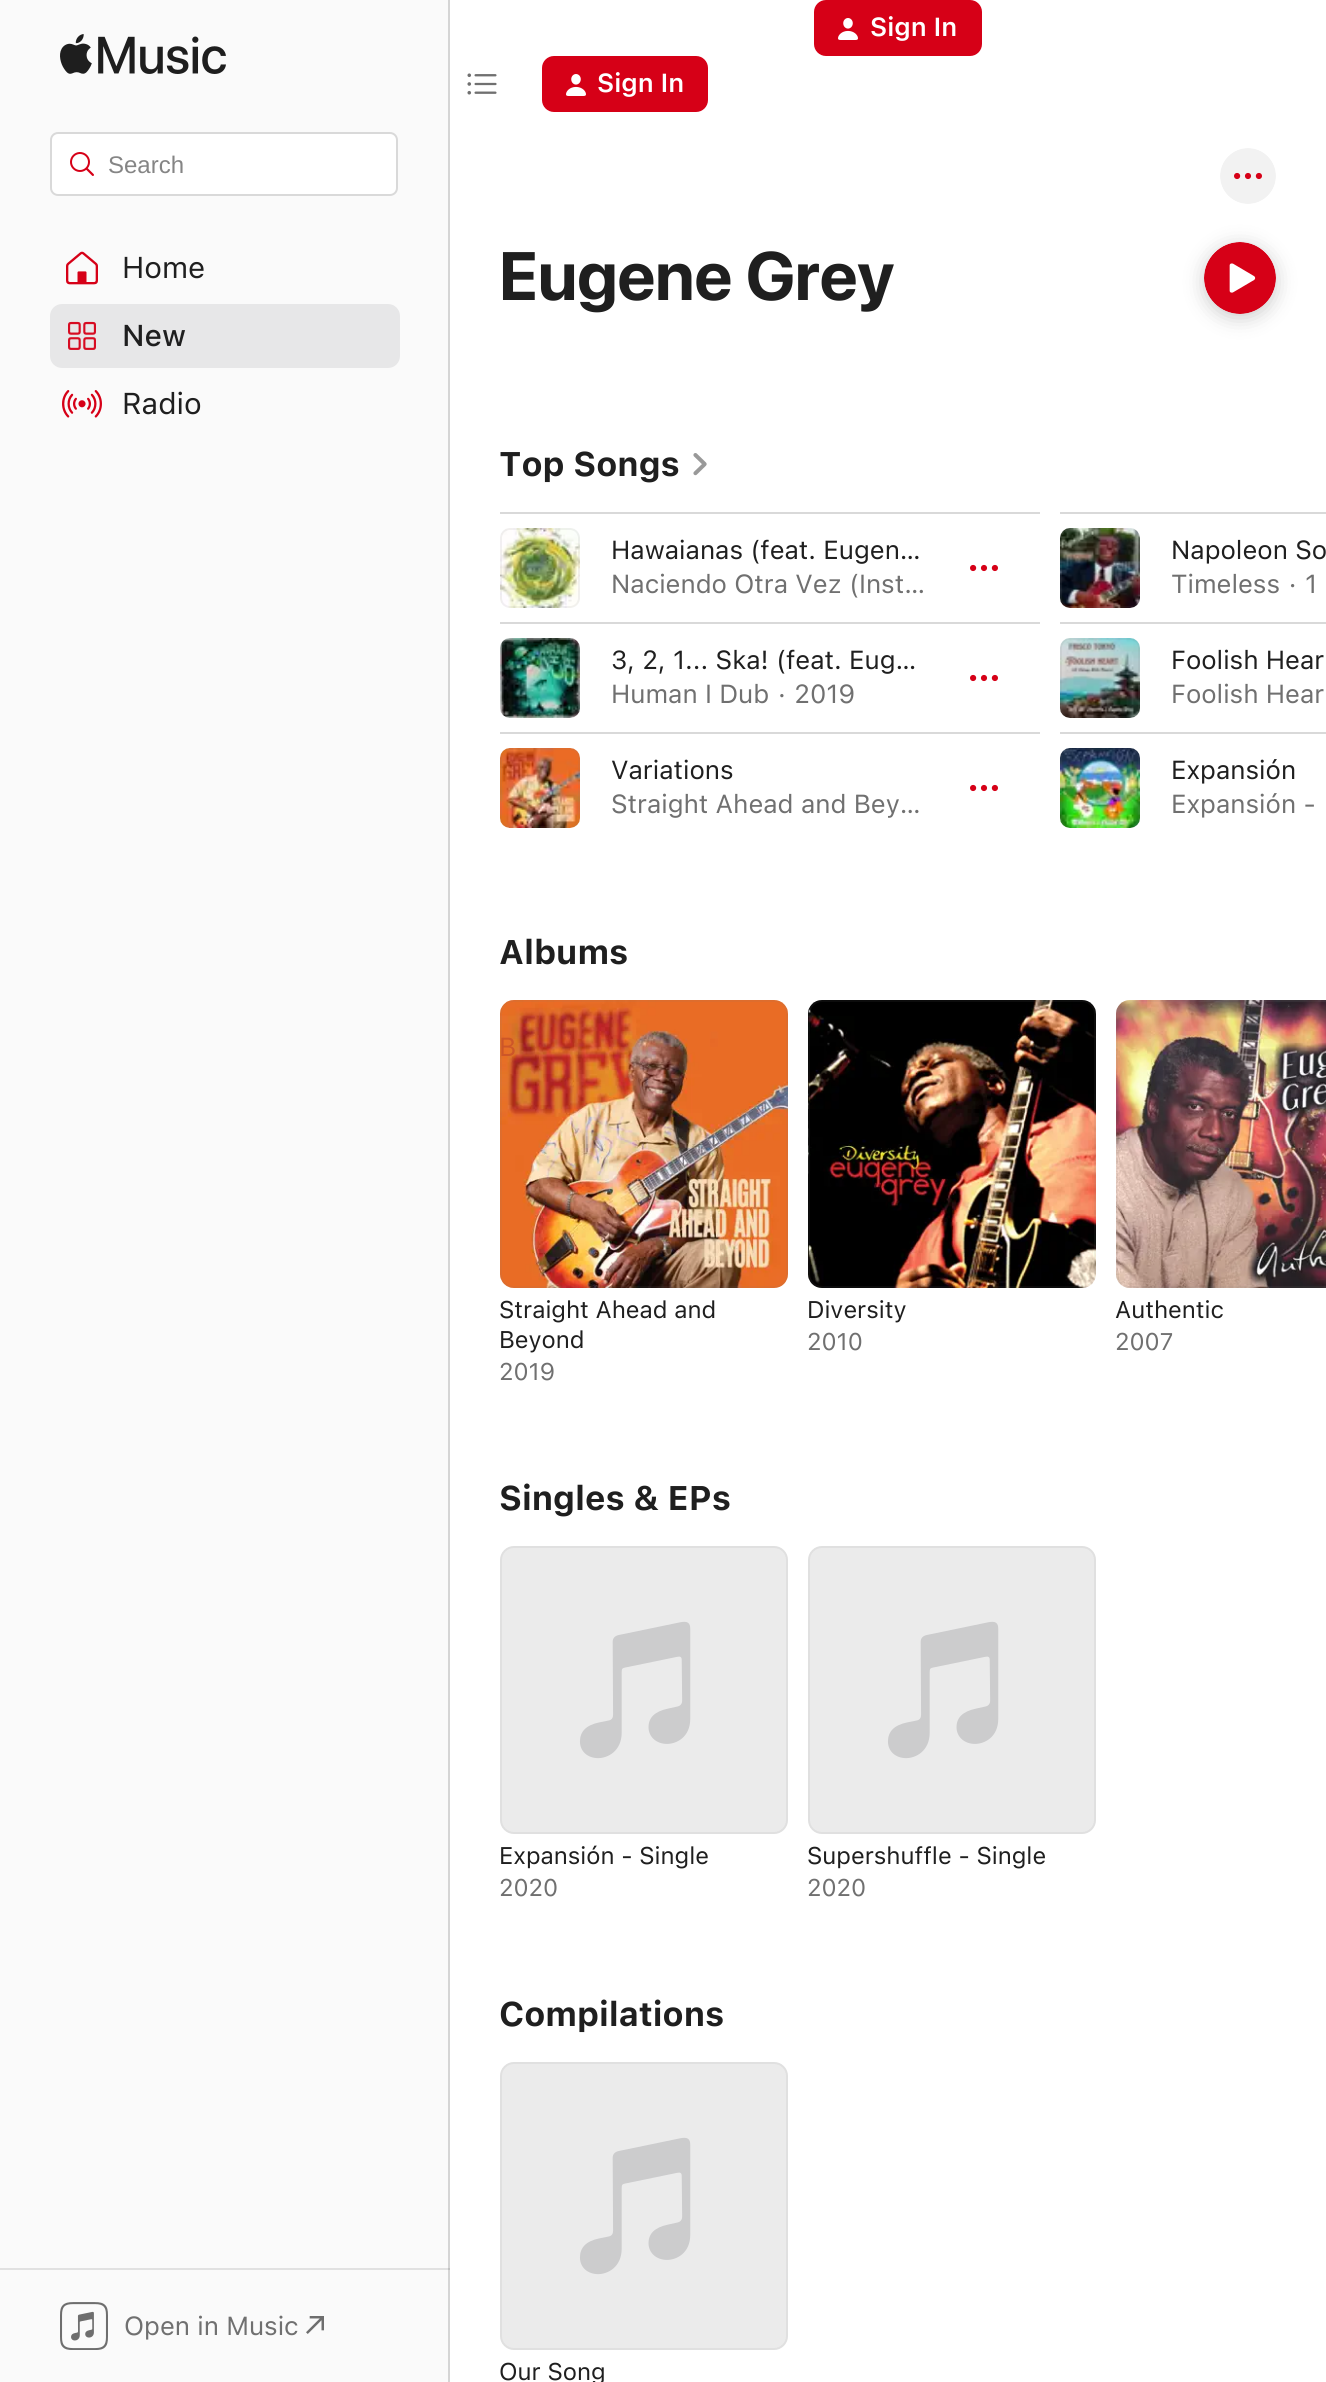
#include <cairo.h>
#include <math.h>
#include <stddef.h>

static cairo_t *ctx;

static void use_color(int r, int g, int b) {
    cairo_set_source_rgb(ctx, r / 255.0, g / 255.0, b / 255.0);
}

static void round_rect(double x, double y, double w, double h, double r) {
    cairo_new_sub_path(ctx);
    cairo_arc(ctx, x + w - r, y + h - r, r, 0, M_PI / 2);
    cairo_arc(ctx, x + r, y + h - r, r, M_PI / 2, M_PI);
    cairo_arc(ctx, x + r, y + r, r, M_PI, 1.5 * M_PI);
    cairo_arc(ctx, x + w - r, y + r, r, 1.5 * M_PI, 2 * M_PI);
    cairo_close_path(ctx);
}

static void shadow(double x, double y, double w, double h, double r, double blur, double alpha) {
    cairo_push_group_with_content(ctx, CAIRO_CONTENT_ALPHA);
    cairo_set_operator(ctx, CAIRO_OPERATOR_SOURCE);
    for (int i = 15; i >= -15 && fmin(w, h) + blur * i / 3 > 0; i -= 2) {
        double e = blur * i / 6;
        cairo_set_source_rgba(ctx, 0, 0, 0, alpha * erfc((i - 1) / 8.5) / 2);
        round_rect(x - e, y - e, w + 2 * e, h + 2 * e, fmax(0, fmin(r + e + blur * .6, fmin(w, h) / 2 + e)));
        cairo_fill(ctx);
    }
    cairo_pattern_t *soft = cairo_pop_group(ctx);
    cairo_mask(ctx, soft);
    cairo_pattern_destroy(soft);
}

static void picture(const char *path, double x, double y, double w, double h) {
    cairo_surface_t *image = cairo_image_surface_create_from_png(path);
    cairo_save(ctx);
    cairo_set_source_surface(ctx, image, x, y);
    cairo_rectangle(ctx, x, y, w, h);
    cairo_fill(ctx);
    cairo_restore(ctx);
    cairo_surface_destroy(image);
}

int main(void) {
    cairo_surface_t *surface = cairo_image_surface_create(CAIRO_FORMAT_RGB24, 1326, 2382);
    ctx = cairo_create(surface);
    cairo_font_options_t *options = cairo_font_options_create();
    cairo_font_options_set_hint_metrics(options, CAIRO_HINT_METRICS_OFF);
    cairo_font_options_set_hint_style(options, CAIRO_HINT_STYLE_NONE);
    cairo_set_font_options(ctx, options);
    cairo_set_miter_limit(ctx, 4);
    use_color(255, 255, 255);
    cairo_paint(ctx);
    use_color(214, 0, 23);
    round_rect(814, 0, 168, 56, 12);
    cairo_fill(ctx);
    picture("img1.png", 838, 18, 20, 22);
    cairo_select_font_face(ctx, "SF SemiBold", CAIRO_FONT_SLANT_NORMAL, CAIRO_FONT_WEIGHT_NORMAL);
    cairo_set_font_size(ctx, 26);
    use_color(255, 255, 255);
    cairo_move_to(ctx, 870, 36);
    cairo_show_text(ctx, "Sign In");
    picture("img2.png", 467, 73, 30, 22);
    use_color(214, 0, 23);
    round_rect(542, 56, 166, 56, 12);
    cairo_fill(ctx);
    picture("img1.png", 566, 74, 20, 22);
    use_color(255, 255, 255);
    cairo_move_to(ctx, 597, 92);
    cairo_show_text(ctx, "Sign In");
    use_color(250, 250, 250);
    cairo_rectangle(ctx, 0, 0, 448, 2382);
    cairo_fill(ctx);
    use_color(225, 225, 225);
    cairo_rectangle(ctx, 0, 2268, 450, 2);
    cairo_fill(ctx);
    use_color(213, 213, 213);
    cairo_rectangle(ctx, 448, 0, 2, 2382);
    cairo_fill(ctx);
    use_color(192, 192, 192);
    cairo_rectangle(ctx, 448, 2268, 2, 2);
    cairo_fill(ctx);
    picture("img3.png", 60, 34, 166, 40);
    use_color(255, 255, 255);
    round_rect(51, 133, 346, 62, 7);
    cairo_fill_preserve(ctx);
    use_color(217, 217, 217);
    cairo_stroke(ctx);
    picture("img4.png", 70, 152, 24, 24);
    cairo_select_font_face(ctx, "Liberation Sans", CAIRO_FONT_SLANT_NORMAL, CAIRO_FONT_WEIGHT_NORMAL);
    cairo_set_font_size(ctx, 24);
    use_color(133, 133, 133);
    cairo_move_to(ctx, 108, 173);
    cairo_show_text(ctx, "Search");
    picture("img5.png", 66, 251, 32, 34);
    cairo_select_font_face(ctx, "SF", CAIRO_FONT_SLANT_NORMAL, CAIRO_FONT_WEIGHT_NORMAL);
    cairo_set_font_size(ctx, 30);
    use_color(31, 31, 31);
    cairo_move_to(ctx, 122, 278);
    cairo_show_text(ctx, "Home");
    use_color(231, 231, 232);
    round_rect(50, 304, 350, 64, 12);
    cairo_fill(ctx);
    picture("img6.png", 68, 321, 28, 29);
    cairo_select_font_face(ctx, "SF Medium", CAIRO_FONT_SLANT_NORMAL, CAIRO_FONT_WEIGHT_NORMAL);
    use_color(31, 31, 31);
    cairo_move_to(ctx, 122, 346);
    cairo_show_text(ctx, "New");
    picture("img7.png", 62, 390, 40, 28);
    cairo_select_font_face(ctx, "SF", CAIRO_FONT_SLANT_NORMAL, CAIRO_FONT_WEIGHT_NORMAL);
    cairo_move_to(ctx, 122, 414);
    cairo_show_text(ctx, "Radio");
    picture("img8.png", 60, 2302, 48, 48);
    cairo_set_font_size(ctx, 26);
    use_color(112, 112, 112);
    cairo_move_to(ctx, 124, 2335);
    cairo_show_text(ctx, "Open in Music");
    picture("img9.png", 306, 2316, 18, 18);
    picture("img10.png", 1220, 148, 56, 56);
    cairo_select_font_face(ctx, "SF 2", CAIRO_FONT_SLANT_NORMAL, CAIRO_FONT_WEIGHT_BOLD);
    cairo_set_font_size(ctx, 68);
    use_color(31, 31, 31);
    cairo_move_to(ctx, 499, 300);
    cairo_show_text(ctx, "Eugene Grey");
    use_color(0, 0, 0);
    shadow(1204, 246, 72, 72, 36, 10, 0.2);
    picture("img11.png", 1204, 242, 72, 72);
    cairo_select_font_face(ctx, "SF", CAIRO_FONT_SLANT_NORMAL, CAIRO_FONT_WEIGHT_BOLD);
    cairo_set_font_size(ctx, 34);
    use_color(31, 31, 31);
    cairo_move_to(ctx, 499, 476);
    cairo_show_text(ctx, "Top Songs");
    picture("img12.png", 693, 453, 14, 23);
    use_color(217, 217, 217);
    cairo_rectangle(ctx, 500, 512, 540, 2);
    cairo_fill(ctx);
    picture("img13.png", 500, 528, 80, 80);
    round_rect(501, 529, 78, 78, 9);
    cairo_set_source_rgba(ctx, 0.502, 0.502, 0.502, 0.1);
    cairo_stroke(ctx);
    cairo_select_font_face(ctx, "SF", CAIRO_FONT_SLANT_NORMAL, CAIRO_FONT_WEIGHT_NORMAL);
    cairo_set_font_size(ctx, 26);
    use_color(31, 31, 31);
    cairo_move_to(ctx, 611, 559);
    cairo_show_text(ctx, "Hawaianas (feat. Eugen…");
    use_color(112, 112, 112);
    cairo_move_to(ctx, 611, 593);
    cairo_show_text(ctx, "Naciendo Otra Vez (Inst…");
    picture("img14.png", 970, 564, 28, 8);
    use_color(217, 217, 217);
    cairo_rectangle(ctx, 1060, 512, 266, 2);
    cairo_fill(ctx);
    picture("img15.png", 1060, 528, 80, 80);
    round_rect(1061, 529, 78, 78, 9);
    cairo_set_source_rgba(ctx, 0.502, 0.502, 0.502, 0.1);
    cairo_stroke(ctx);
    use_color(31, 31, 31);
    cairo_move_to(ctx, 1171, 559);
    cairo_show_text(ctx, "Napoleon So");
    use_color(112, 112, 112);
    cairo_move_to(ctx, 1171, 593);
    cairo_show_text(ctx, "Timeless · 1");
    use_color(217, 217, 217);
    cairo_rectangle(ctx, 500, 622, 540, 2);
    cairo_fill(ctx);
    picture("img16.png", 500, 638, 80, 80);
    round_rect(501, 639, 78, 78, 9);
    cairo_set_source_rgba(ctx, 0.502, 0.502, 0.502, 0.1);
    cairo_stroke(ctx);
    use_color(31, 31, 31);
    cairo_move_to(ctx, 611, 669);
    cairo_show_text(ctx, "3, 2, 1... Ska! (feat. Eug…");
    use_color(112, 112, 112);
    cairo_move_to(ctx, 611, 703);
    cairo_show_text(ctx, "Human I Dub · 2019");
    picture("img14.png", 970, 674, 28, 8);
    use_color(217, 217, 217);
    cairo_rectangle(ctx, 1060, 622, 266, 2);
    cairo_fill(ctx);
    picture("img17.png", 1060, 638, 80, 80);
    round_rect(1061, 639, 78, 78, 9);
    cairo_set_source_rgba(ctx, 0.502, 0.502, 0.502, 0.1);
    cairo_stroke(ctx);
    use_color(31, 31, 31);
    cairo_move_to(ctx, 1171, 669);
    cairo_show_text(ctx, "Foolish Hear");
    use_color(112, 112, 112);
    cairo_move_to(ctx, 1171, 703);
    cairo_show_text(ctx, "Foolish Hear");
    use_color(217, 217, 217);
    cairo_rectangle(ctx, 500, 732, 540, 2);
    cairo_fill(ctx);
    picture("img18.png", 500, 748, 80, 80);
    round_rect(501, 749, 78, 78, 9);
    cairo_set_source_rgba(ctx, 0.502, 0.502, 0.502, 0.1);
    cairo_stroke(ctx);
    use_color(31, 31, 31);
    cairo_move_to(ctx, 611, 779);
    cairo_show_text(ctx, "Variations");
    use_color(112, 112, 112);
    cairo_move_to(ctx, 611, 813);
    cairo_show_text(ctx, "Straight Ahead and Bey…");
    picture("img14.png", 970, 784, 28, 8);
    use_color(217, 217, 217);
    cairo_rectangle(ctx, 1060, 732, 266, 2);
    cairo_fill(ctx);
    picture("img19.png", 1060, 748, 80, 80);
    round_rect(1061, 749, 78, 78, 9);
    cairo_set_source_rgba(ctx, 0.502, 0.502, 0.502, 0.1);
    cairo_stroke(ctx);
    use_color(31, 31, 31);
    cairo_move_to(ctx, 1171, 779);
    cairo_show_text(ctx, "Expansión");
    use_color(112, 112, 112);
    cairo_move_to(ctx, 1171, 813);
    cairo_show_text(ctx, "Expansión -");
    cairo_select_font_face(ctx, "SF", CAIRO_FONT_SLANT_NORMAL, CAIRO_FONT_WEIGHT_BOLD);
    cairo_set_font_size(ctx, 34);
    use_color(31, 31, 31);
    cairo_move_to(ctx, 499, 964);
    cairo_show_text(ctx, "Albums");
    picture("img20.png", 500, 1000, 288, 288);
    round_rect(501, 1001, 286, 286, 13);
    cairo_set_source_rgba(ctx, 0.502, 0.502, 0.502, 0.1);
    cairo_stroke(ctx);
    cairo_select_font_face(ctx, "SF", CAIRO_FONT_SLANT_NORMAL, CAIRO_FONT_WEIGHT_NORMAL);
    cairo_set_font_size(ctx, 26);
    use_color(205, 86, 40);
    cairo_move_to(ctx, 499, 1056);
    cairo_show_text(ctx, "B");
    cairo_set_font_size(ctx, 24);
    use_color(31, 31, 31);
    cairo_move_to(ctx, 499, 1318);
    cairo_show_text(ctx, "Straight Ahead and");
    cairo_move_to(ctx, 499, 1348);
    cairo_show_text(ctx, "Beyond");
    use_color(112, 112, 112);
    cairo_move_to(ctx, 499, 1380);
    cairo_show_text(ctx, "2019");
    picture("img21.png", 808, 1000, 288, 288);
    round_rect(809, 1001, 286, 286, 13);
    cairo_set_source_rgba(ctx, 0.502, 0.502, 0.502, 0.1);
    cairo_stroke(ctx);
    use_color(31, 31, 31);
    cairo_move_to(ctx, 807, 1318);
    cairo_show_text(ctx, "Diversity");
    use_color(112, 112, 112);
    cairo_move_to(ctx, 807, 1350);
    cairo_show_text(ctx, "2010");
    picture("img22.png", 1116, 1000, 210, 288);
    round_rect(1117, 1001, 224, 286, 13);
    cairo_set_source_rgba(ctx, 0.502, 0.502, 0.502, 0.1);
    cairo_stroke(ctx);
    use_color(31, 31, 31);
    cairo_move_to(ctx, 1115, 1318);
    cairo_show_text(ctx, "Authentic");
    use_color(112, 112, 112);
    cairo_move_to(ctx, 1115, 1350);
    cairo_show_text(ctx, "2007");
    cairo_select_font_face(ctx, "SF", CAIRO_FONT_SLANT_NORMAL, CAIRO_FONT_WEIGHT_BOLD);
    cairo_set_font_size(ctx, 34);
    use_color(31, 31, 31);
    cairo_move_to(ctx, 499, 1510);
    cairo_show_text(ctx, "Singles & EPs");
    picture("img23.png", 500, 1546, 288, 288);
    round_rect(501, 1547, 286, 286, 13);
    cairo_set_source_rgba(ctx, 0.502, 0.502, 0.502, 0.1);
    cairo_stroke(ctx);
    cairo_select_font_face(ctx, "SF", CAIRO_FONT_SLANT_NORMAL, CAIRO_FONT_WEIGHT_NORMAL);
    cairo_set_font_size(ctx, 24);
    use_color(31, 31, 31);
    cairo_move_to(ctx, 499, 1864);
    cairo_show_text(ctx, "Expansión - Single");
    use_color(112, 112, 112);
    cairo_move_to(ctx, 499, 1896);
    cairo_show_text(ctx, "2020");
    picture("img24.png", 808, 1546, 288, 288);
    round_rect(809, 1547, 286, 286, 13);
    cairo_set_source_rgba(ctx, 0.502, 0.502, 0.502, 0.1);
    cairo_stroke(ctx);
    use_color(31, 31, 31);
    cairo_move_to(ctx, 807, 1864);
    cairo_show_text(ctx, "Supershuffle - Single");
    use_color(112, 112, 112);
    cairo_move_to(ctx, 807, 1896);
    cairo_show_text(ctx, "2020");
    cairo_select_font_face(ctx, "SF", CAIRO_FONT_SLANT_NORMAL, CAIRO_FONT_WEIGHT_BOLD);
    cairo_set_font_size(ctx, 34);
    use_color(31, 31, 31);
    cairo_move_to(ctx, 499, 2026);
    cairo_show_text(ctx, "Compilations");
    picture("img25.png", 500, 2062, 288, 288);
    round_rect(501, 2063, 286, 286, 13);
    cairo_set_source_rgba(ctx, 0.502, 0.502, 0.502, 0.1);
    cairo_stroke(ctx);
    cairo_select_font_face(ctx, "SF", CAIRO_FONT_SLANT_NORMAL, CAIRO_FONT_WEIGHT_NORMAL);
    cairo_set_font_size(ctx, 24);
    use_color(31, 31, 31);
    cairo_move_to(ctx, 499, 2380);
    cairo_show_text(ctx, "Our Song");
    cairo_surface_write_to_png(surface, "result.png");
    cairo_font_options_destroy(options);
    cairo_destroy(ctx);
    cairo_surface_destroy(surface);
    return 0;
}
